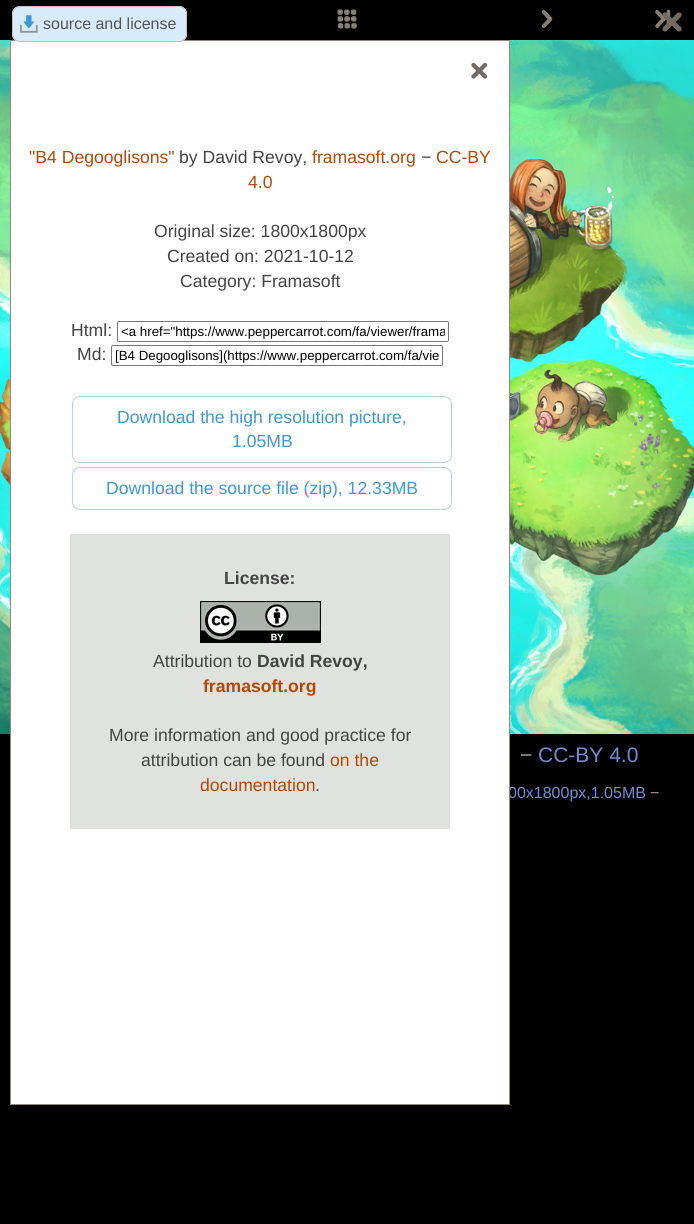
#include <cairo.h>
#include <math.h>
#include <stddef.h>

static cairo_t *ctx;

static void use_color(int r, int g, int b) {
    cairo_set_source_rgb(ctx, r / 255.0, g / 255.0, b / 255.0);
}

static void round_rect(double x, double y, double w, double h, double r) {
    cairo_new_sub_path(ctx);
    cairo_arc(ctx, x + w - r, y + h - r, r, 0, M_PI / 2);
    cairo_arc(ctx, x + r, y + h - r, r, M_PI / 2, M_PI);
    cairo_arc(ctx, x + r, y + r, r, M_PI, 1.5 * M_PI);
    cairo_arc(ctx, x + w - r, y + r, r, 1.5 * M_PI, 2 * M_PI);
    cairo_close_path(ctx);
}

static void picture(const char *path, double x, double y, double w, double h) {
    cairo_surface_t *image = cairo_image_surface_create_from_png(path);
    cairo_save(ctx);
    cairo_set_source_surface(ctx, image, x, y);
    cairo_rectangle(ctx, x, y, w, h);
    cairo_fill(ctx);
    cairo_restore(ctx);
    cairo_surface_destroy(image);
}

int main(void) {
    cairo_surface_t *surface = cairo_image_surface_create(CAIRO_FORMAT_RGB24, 694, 1224);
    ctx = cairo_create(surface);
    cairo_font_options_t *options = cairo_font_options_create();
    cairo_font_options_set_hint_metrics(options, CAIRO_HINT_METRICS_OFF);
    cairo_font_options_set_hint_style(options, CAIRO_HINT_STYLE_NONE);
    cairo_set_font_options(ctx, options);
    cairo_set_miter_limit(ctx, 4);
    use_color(0, 0, 0);
    cairo_paint(ctx);
    picture("img5.png", 0, 40, 694, 694);
    cairo_select_font_face(ctx, "Liberation Sans", CAIRO_FONT_SLANT_NORMAL, CAIRO_FONT_WEIGHT_NORMAL);
    cairo_set_font_size(ctx, 16);
    use_color(114, 140, 212);
    cairo_move_to(ctx, 508, 798);
    cairo_show_text(ctx, "00x1800px,1.05MB");
    use_color(255, 255, 255);
    cairo_rectangle(ctx, 10.5, 40.5, 499, 1064);
    cairo_fill_preserve(ctx);
    use_color(148, 135, 128);
    cairo_set_line_width(ctx, 1);
    cairo_stroke(ctx);
    use_color(216, 235, 250);
    round_rect(12, 6, 175, 36, 8);
    cairo_fill(ctx);
    picture("img1.png", 20, 15, 18, 18);
    round_rect(12.5, 6.5, 174, 35, 7.5);
    use_color(208, 190, 180);
    cairo_stroke(ctx);
    use_color(85, 85, 85);
    cairo_move_to(ctx, 43, 29);
    cairo_show_text(ctx, "source and license");
    picture("img2.png", 337, 9, 20, 20);
    picture("img3.png", 541, 10, 12, 18);
    picture("img4.png", 655, 9, 16, 20);
    cairo_new_path(ctx);
    cairo_move_to(ctx, 665, 15);
    cairo_line_to(ctx, 679, 29);
    cairo_move_to(ctx, 679, 15);
    cairo_line_to(ctx, 665, 29);
    use_color(116, 106, 98);
    cairo_set_line_width(ctx, 5.2);
    cairo_set_line_cap(ctx, CAIRO_LINE_CAP_ROUND);
    cairo_stroke(ctx);
    cairo_new_path(ctx);
    cairo_move_to(ctx, 473.5, 65);
    cairo_line_to(ctx, 485, 76.5);
    cairo_move_to(ctx, 485, 65);
    cairo_line_to(ctx, 473.5, 76.5);
    cairo_set_line_width(ctx, 4.3);
    cairo_stroke(ctx);
    cairo_set_font_size(ctx, 17.6);
    use_color(180, 73, 6);
    cairo_move_to(ctx, 29, 163);
    cairo_show_text(ctx, "\"B4 Degooglisons\"");
    use_color(68, 68, 68);
    cairo_move_to(ctx, 179, 163);
    cairo_show_text(ctx, "by David Revoy,");
    use_color(180, 73, 6);
    cairo_move_to(ctx, 312, 163);
    cairo_show_text(ctx, "framasoft.org");
    use_color(68, 68, 68);
    cairo_move_to(ctx, 421, 163);
    cairo_show_text(ctx, "−");
    use_color(180, 73, 6);
    cairo_move_to(ctx, 436, 163);
    cairo_show_text(ctx, "CC-BY");
    cairo_move_to(ctx, 248, 188);
    cairo_show_text(ctx, "4.0");
    use_color(68, 68, 68);
    cairo_move_to(ctx, 154, 237);
    cairo_show_text(ctx, "Original size: 1800x1800px");
    cairo_move_to(ctx, 167, 262);
    cairo_show_text(ctx, "Created on: 2021-10-12");
    cairo_move_to(ctx, 180, 287);
    cairo_show_text(ctx, "Category: Framasoft");
    cairo_move_to(ctx, 71, 336);
    cairo_show_text(ctx, "Html:");
    round_rect(117.5, 321.5, 331, 20, 1.5);
    use_color(118, 118, 118);
    cairo_set_line_width(ctx, 1);
    cairo_set_line_cap(ctx, CAIRO_LINE_CAP_BUTT);
    cairo_stroke(ctx);
    cairo_save(ctx);
    cairo_rectangle(ctx, 121, 324, 324, 15);
    cairo_clip(ctx);
    cairo_set_font_size(ctx, 13.3);
    use_color(0, 0, 0);
    cairo_move_to(ctx, 121, 336);
    cairo_show_text(ctx, "<a href=\"https://www.peppercarrot.com/fa/viewer/frama");
    cairo_restore(ctx);
    use_color(68, 68, 68);
    cairo_move_to(ctx, 77, 360);
    cairo_show_text(ctx, "Md:");
    round_rect(111.5, 345.5, 331, 20, 1.5);
    use_color(118, 118, 118);
    cairo_stroke(ctx);
    cairo_save(ctx);
    cairo_rectangle(ctx, 115, 348, 324, 15);
    cairo_clip(ctx);
    cairo_set_font_size(ctx, 13.3);
    use_color(0, 0, 0);
    cairo_move_to(ctx, 115, 360);
    cairo_show_text(ctx, "[B4 Degooglisons](https://www.peppercarrot.com/fa/vie");
    cairo_restore(ctx);
    round_rect(72.5, 396.5, 379, 66, 7.5);
    use_color(181, 208, 225);
    cairo_stroke(ctx);
    use_color(60, 152, 215);
    cairo_move_to(ctx, 117, 423);
    cairo_show_text(ctx, "Download the high resolution picture,");
    cairo_move_to(ctx, 232, 447);
    cairo_show_text(ctx, "1.05MB");
    round_rect(72.5, 467.5, 379, 42, 7.5);
    use_color(181, 208, 225);
    cairo_stroke(ctx);
    use_color(60, 152, 215);
    cairo_move_to(ctx, 106, 494);
    cairo_show_text(ctx, "Download the source file (zip), 12.33MB");
    use_color(224, 226, 224);
    cairo_rectangle(ctx, 70, 534, 380, 295);
    cairo_fill(ctx);
    cairo_select_font_face(ctx, "Liberation Sans", CAIRO_FONT_SLANT_NORMAL, CAIRO_FONT_WEIGHT_BOLD);
    use_color(68, 68, 68);
    cairo_move_to(ctx, 224, 584);
    cairo_show_text(ctx, "License:");
    picture("img6.png", 200, 601, 121, 42);
    cairo_select_font_face(ctx, "Liberation Sans", CAIRO_FONT_SLANT_NORMAL, CAIRO_FONT_WEIGHT_NORMAL);
    cairo_move_to(ctx, 153, 667);
    cairo_show_text(ctx, "Attribution to");
    cairo_select_font_face(ctx, "Liberation Sans", CAIRO_FONT_SLANT_NORMAL, CAIRO_FONT_WEIGHT_BOLD);
    cairo_move_to(ctx, 257, 667);
    cairo_show_text(ctx, "David Revoy,");
    use_color(180, 73, 6);
    cairo_move_to(ctx, 203, 692);
    cairo_show_text(ctx, "framasoft.org");
    cairo_select_font_face(ctx, "Liberation Sans", CAIRO_FONT_SLANT_NORMAL, CAIRO_FONT_WEIGHT_NORMAL);
    use_color(68, 68, 68);
    cairo_move_to(ctx, 109, 741);
    cairo_show_text(ctx, "More information and good practice for");
    cairo_move_to(ctx, 141, 766);
    cairo_show_text(ctx, "attribution can be found");
    use_color(180, 73, 6);
    cairo_move_to(ctx, 330, 766);
    cairo_show_text(ctx, "on the");
    cairo_move_to(ctx, 200, 791);
    cairo_show_text(ctx, "documentation");
    use_color(68, 68, 68);
    cairo_move_to(ctx, 315, 791);
    cairo_show_text(ctx, ".");
    cairo_set_font_size(ctx, 21);
    use_color(168, 160, 148);
    cairo_move_to(ctx, 520, 762);
    cairo_show_text(ctx, "−");
    use_color(114, 140, 212);
    cairo_move_to(ctx, 538, 762);
    cairo_show_text(ctx, "CC-BY 4.0");
    cairo_set_font_size(ctx, 16);
    use_color(168, 160, 148);
    cairo_move_to(ctx, 650, 798);
    cairo_show_text(ctx, "−");
    cairo_surface_write_to_png(surface, "result.png");
    cairo_font_options_destroy(options);
    cairo_destroy(ctx);
    cairo_surface_destroy(surface);
    return 0;
}
